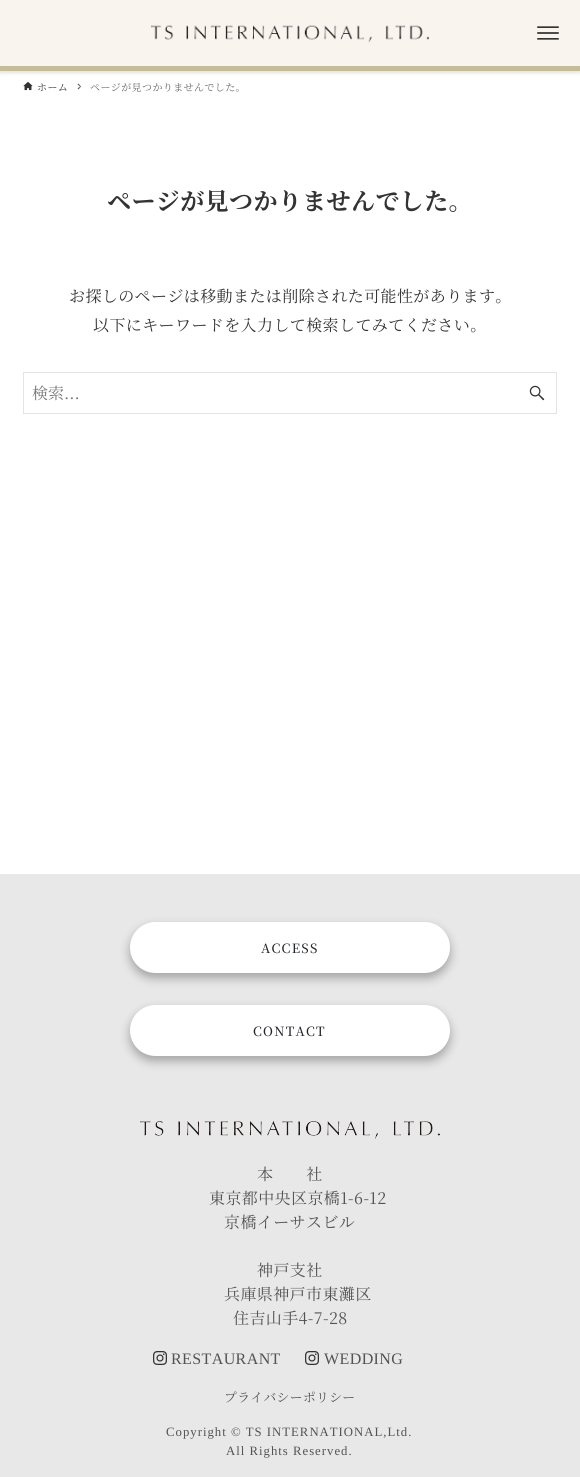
#include <cairo.h>
#include <math.h>
#include <stddef.h>

static cairo_t *ctx;

static void use_color(int r, int g, int b) {
    cairo_set_source_rgb(ctx, r / 255.0, g / 255.0, b / 255.0);
}

static void spaced_text(double x, double y, const char *s, double letter, double word) {
    cairo_move_to(ctx, x, y);
    while (*s) {
        char ch[5] = {0};
        int n = 0;
        do ch[n++] = *s++; while ((*s & 0xC0) == 0x80);
        cairo_show_text(ctx, ch);
        cairo_rel_move_to(ctx, letter + word * (*ch == ' '), 0);
    }
}

static void round_rect(double x, double y, double w, double h, double r) {
    cairo_new_sub_path(ctx);
    cairo_arc(ctx, x + w - r, y + h - r, r, 0, M_PI / 2);
    cairo_arc(ctx, x + r, y + h - r, r, M_PI / 2, M_PI);
    cairo_arc(ctx, x + r, y + r, r, M_PI, 1.5 * M_PI);
    cairo_arc(ctx, x + w - r, y + r, r, 1.5 * M_PI, 2 * M_PI);
    cairo_close_path(ctx);
}

static void shadow(double x, double y, double w, double h, double r, double blur, double alpha) {
    cairo_push_group_with_content(ctx, CAIRO_CONTENT_ALPHA);
    cairo_set_operator(ctx, CAIRO_OPERATOR_SOURCE);
    for (int i = 15; i >= -15 && fmin(w, h) + blur * i / 3 > 0; i -= 2) {
        double e = blur * i / 6;
        cairo_set_source_rgba(ctx, 0, 0, 0, alpha * erfc((i - 1) / 8.5) / 2);
        round_rect(x - e, y - e, w + 2 * e, h + 2 * e, fmax(0, fmin(r + e + blur * .6, fmin(w, h) / 2 + e)));
        cairo_fill(ctx);
    }
    cairo_pattern_t *soft = cairo_pop_group(ctx);
    cairo_mask(ctx, soft);
    cairo_pattern_destroy(soft);
}

static void picture(const char *path, double x, double y, double w, double h) {
    cairo_surface_t *image = cairo_image_surface_create_from_png(path);
    cairo_save(ctx);
    cairo_set_source_surface(ctx, image, x, y);
    cairo_rectangle(ctx, x, y, w, h);
    cairo_fill(ctx);
    cairo_restore(ctx);
    cairo_surface_destroy(image);
}

int main(void) {
    cairo_surface_t *surface = cairo_image_surface_create(CAIRO_FORMAT_RGB24, 580, 1477);
    ctx = cairo_create(surface);
    cairo_font_options_t *options = cairo_font_options_create();
    cairo_font_options_set_hint_metrics(options, CAIRO_HINT_METRICS_OFF);
    cairo_font_options_set_hint_style(options, CAIRO_HINT_STYLE_NONE);
    cairo_set_font_options(ctx, options);
    cairo_set_miter_limit(ctx, 4);
    use_color(255, 255, 255);
    cairo_paint(ctx);
    use_color(0, 0, 0);
    shadow(0, 2, 580, 71, 0, 2, 0.12);
    use_color(249, 244, 238);
    cairo_rectangle(ctx, 0, 0, 580, 66);
    cairo_fill(ctx);
    use_color(197, 189, 152);
    cairo_rectangle(ctx, 0, 66, 580, 5);
    cairo_fill(ctx);
    picture("img1.png", 151, 25, 278, 18);
    picture("img2.png", 537, 26, 22, 14);
    picture("img3.png", 23, 82, 10, 9);
    cairo_select_font_face(ctx, "Noto Serif JP", CAIRO_FONT_SLANT_NORMAL, CAIRO_FONT_WEIGHT_NORMAL);
    cairo_set_font_size(ctx, 10);
    use_color(51, 51, 51);
    spaced_text(37, 91, "ホーム", 0.4, 0);
    use_color(102, 102, 102);
    cairo_new_path(ctx);
    cairo_move_to(ctx, 78.5, 83.5);
    cairo_line_to(ctx, 81, 86.5);
    cairo_line_to(ctx, 80.5, 87);
    cairo_line_to(ctx, 77.5, 84.5);
    cairo_close_path(ctx);
    cairo_fill(ctx);
    cairo_new_path(ctx);
    cairo_move_to(ctx, 80.5, 86);
    cairo_line_to(ctx, 81, 86.5);
    cairo_line_to(ctx, 78.5, 89.5);
    cairo_line_to(ctx, 77.5, 88.5);
    cairo_close_path(ctx);
    cairo_fill(ctx);
    spaced_text(90, 91, "ページが見つかりませんでした。", 0.4, 0);
    cairo_select_font_face(ctx, "Noto Serif JP", CAIRO_FONT_SLANT_NORMAL, CAIRO_FONT_WEIGHT_BOLD);
    cairo_set_font_size(ctx, 24);
    use_color(51, 51, 51);
    spaced_text(107, 210, "ページが見つかりませんでした。", 0.4, 0);
    cairo_select_font_face(ctx, "Noto Serif JP", CAIRO_FONT_SLANT_NORMAL, CAIRO_FONT_WEIGHT_NORMAL);
    cairo_set_font_size(ctx, 16);
    spaced_text(69, 302, "お探しのページは移動または削除された可能性があります。", 0.4, 0);
    spaced_text(93, 331, "以下にキーワードを入力して検索してみてください。", 0.4, 0);
    cairo_rectangle(ctx, 23.5, 372.5, 533, 41);
    use_color(228, 228, 228);
    cairo_set_line_width(ctx, 1);
    cairo_stroke(ctx);
    use_color(117, 117, 117);
    cairo_move_to(ctx, 32, 399);
    cairo_show_text(ctx, "検索...");
    picture("img4.png", 529, 385, 16, 16);
    use_color(232, 232, 232);
    cairo_rectangle(ctx, 0, 874, 580, 603);
    cairo_fill(ctx);
    use_color(0, 0, 0);
    shadow(130, 927, 320, 51, 25.5, 5, 0.3);
    use_color(255, 255, 255);
    round_rect(130, 922, 320, 51, 25.5);
    cairo_fill(ctx);
    cairo_select_font_face(ctx, "Noto Serif JP Medium", CAIRO_FONT_SLANT_NORMAL, CAIRO_FONT_WEIGHT_NORMAL);
    cairo_set_font_size(ctx, 12.75);
    use_color(33, 37, 41);
    spaced_text(261, 953, "ACCESS", 1.25, 0);
    use_color(0, 0, 0);
    shadow(130, 1010, 320, 51, 25.5, 5, 0.3);
    use_color(255, 255, 255);
    round_rect(130, 1005, 320, 51, 25.5);
    cairo_fill(ctx);
    use_color(33, 37, 41);
    spaced_text(253, 1036, "CONTACT", 1.25, 0);
    picture("img5.png", 140, 1121, 300, 18);
    cairo_select_font_face(ctx, "Noto Serif JP", CAIRO_FONT_SLANT_NORMAL, CAIRO_FONT_WEIGHT_NORMAL);
    cairo_set_font_size(ctx, 16);
    use_color(83, 83, 83);
    spaced_text(257, 1180, "本　　社", 0.4, 0);
    spaced_text(209, 1204, "東京都中央区京橋1-6-12", 0.4, 0);
    spaced_text(224, 1228, "京橋イーサスビル", 0.4, 0);
    spaced_text(257, 1276, "神戸支社", 0.4, 0);
    spaced_text(224, 1300, "兵庫県神戸市東灘区", 0.4, 0);
    spaced_text(233, 1324, "住吉山手4-7-28", 0.4, 0);
    picture("img6.png", 153, 1351, 14, 14);
    cairo_select_font_face(ctx, "Liberation Serif", CAIRO_FONT_SLANT_NORMAL, CAIRO_FONT_WEIGHT_NORMAL);
    spaced_text(171, 1364, "RESTAURANT", 0.4, 0);
    picture("img6.png", 305, 1351, 14, 14);
    spaced_text(324, 1364, "WEDDING", 0.4, 0);
    cairo_select_font_face(ctx, "Noto Serif JP", CAIRO_FONT_SLANT_NORMAL, CAIRO_FONT_WEIGHT_NORMAL);
    cairo_set_font_size(ctx, 12.75);
    spaced_text(224, 1402, "プライバシーポリシー", 0.4, 0);
    cairo_select_font_face(ctx, "Liberation Serif", CAIRO_FONT_SLANT_NORMAL, CAIRO_FONT_WEIGHT_NORMAL);
    spaced_text(166, 1436, "Copyright © TS INTERNATIONAL,Ltd.", 1, 0);
    spaced_text(226, 1455, "All Rights Reserved.", 1, 0);
    cairo_surface_write_to_png(surface, "result.png");
    cairo_font_options_destroy(options);
    cairo_destroy(ctx);
    cairo_surface_destroy(surface);
    return 0;
}
